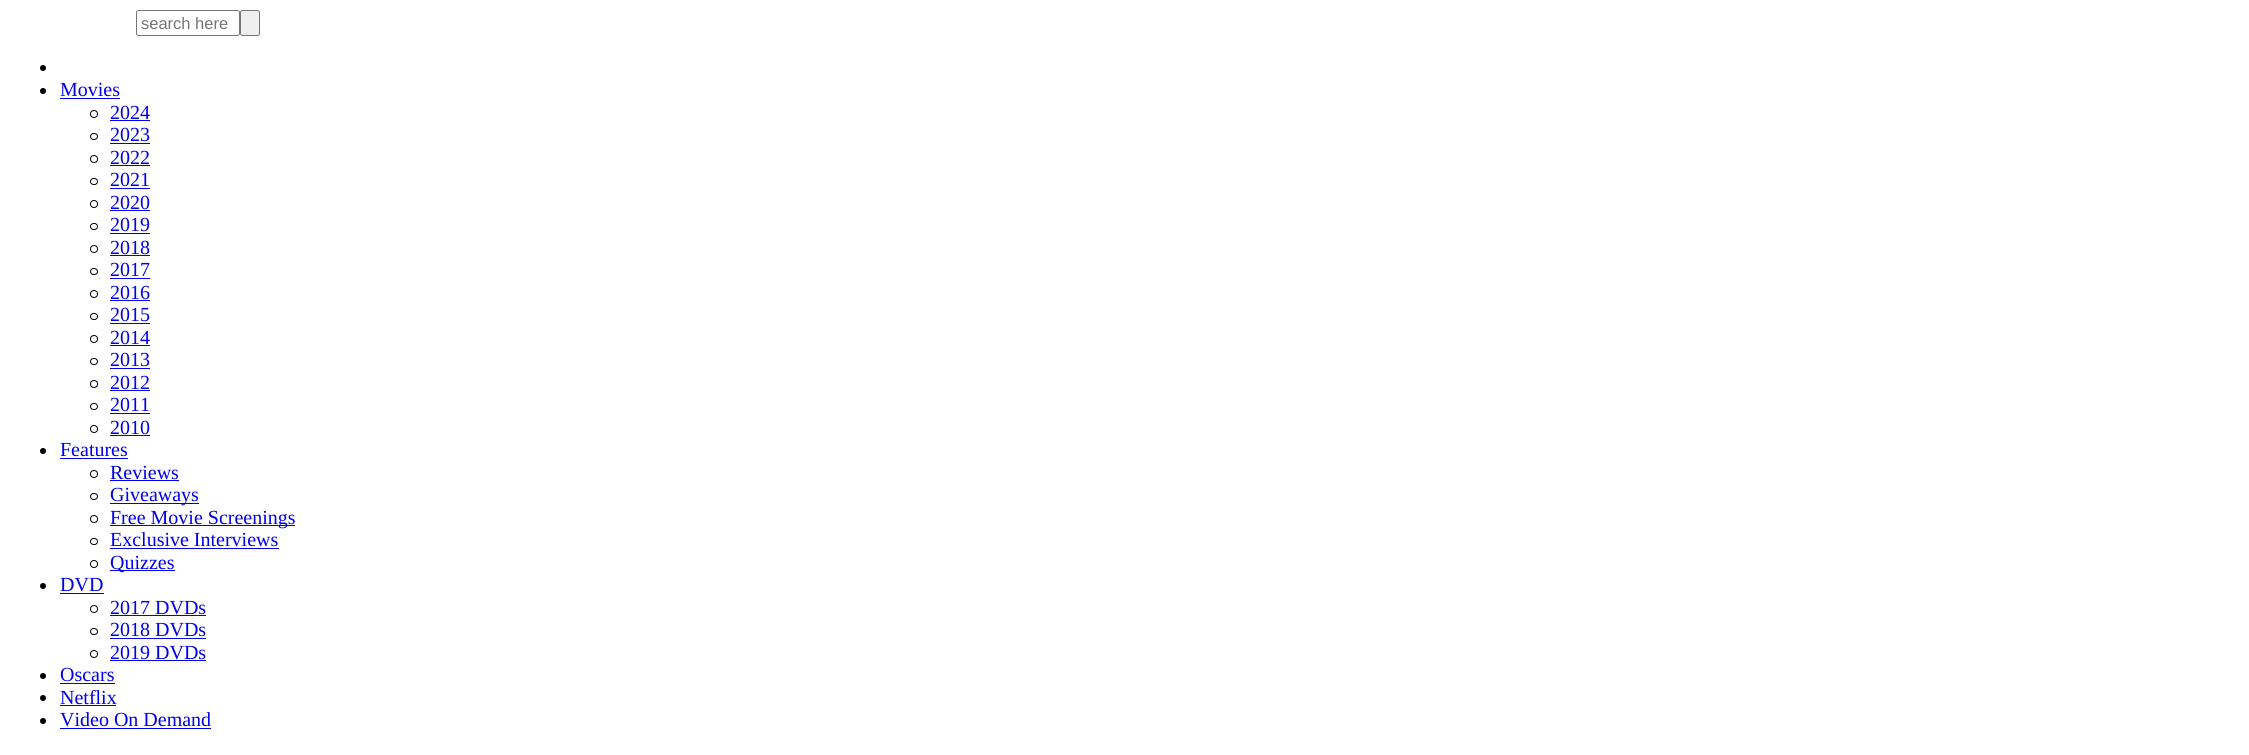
#include <cairo.h>
#include <math.h>
#include <stddef.h>

static cairo_t *ctx;

static void use_color(int r, int g, int b) {
    cairo_set_source_rgb(ctx, r / 255.0, g / 255.0, b / 255.0);
}

static void round_rect(double x, double y, double w, double h, double r) {
    cairo_new_sub_path(ctx);
    cairo_arc(ctx, x + w - r, y + h - r, r, 0, M_PI / 2);
    cairo_arc(ctx, x + r, y + h - r, r, M_PI / 2, M_PI);
    cairo_arc(ctx, x + r, y + r, r, M_PI, 1.5 * M_PI);
    cairo_arc(ctx, x + w - r, y + r, r, 1.5 * M_PI, 2 * M_PI);
    cairo_close_path(ctx);
}

int main(void) {
    cairo_surface_t *surface = cairo_image_surface_create(CAIRO_FORMAT_RGB24, 2249, 755);
    ctx = cairo_create(surface);
    cairo_font_options_t *options = cairo_font_options_create();
    cairo_font_options_set_hint_metrics(options, CAIRO_HINT_METRICS_OFF);
    cairo_font_options_set_hint_style(options, CAIRO_HINT_STYLE_NONE);
    cairo_set_font_options(ctx, options);
    cairo_set_miter_limit(ctx, 4);
    use_color(255, 255, 255);
    cairo_paint(ctx);
    round_rect(136.5, 10.5, 103, 25, 2);
    use_color(118, 118, 118);
    cairo_set_line_width(ctx, 1);
    cairo_stroke(ctx);
    cairo_select_font_face(ctx, "Liberation Sans", CAIRO_FONT_SLANT_NORMAL, CAIRO_FONT_WEIGHT_NORMAL);
    cairo_set_font_size(ctx, 16.5);
    use_color(117, 117, 117);
    cairo_move_to(ctx, 141, 29);
    cairo_show_text(ctx, "search here");
    use_color(239, 239, 239);
    round_rect(240.5, 10.5, 19, 25, 2);
    cairo_fill_preserve(ctx);
    use_color(118, 118, 118);
    cairo_stroke(ctx);
    use_color(0, 0, 0);
    cairo_arc(ctx, 43, 68, 3, 0, 2 * M_PI);
    cairo_fill(ctx);
    cairo_arc(ctx, 43, 91, 3, 0, 2 * M_PI);
    cairo_fill(ctx);
    cairo_select_font_face(ctx, "Liberation Serif", CAIRO_FONT_SLANT_NORMAL, CAIRO_FONT_WEIGHT_NORMAL);
    cairo_set_font_size(ctx, 20);
    use_color(0, 0, 238);
    cairo_move_to(ctx, 60, 96);
    cairo_show_text(ctx, "Movies");
    cairo_rectangle(ctx, 60, 98, 60, 1);
    cairo_fill(ctx);
    cairo_arc(ctx, 94, 114, 3.5, 0, 2 * M_PI);
    use_color(0, 0, 0);
    cairo_stroke(ctx);
    use_color(0, 0, 238);
    cairo_move_to(ctx, 110, 119);
    cairo_show_text(ctx, "2024");
    cairo_rectangle(ctx, 110, 120, 40, 1);
    cairo_fill(ctx);
    round_rect(90.5, 133.5, 7, 6, 3);
    use_color(0, 0, 0);
    cairo_stroke(ctx);
    use_color(0, 0, 238);
    cairo_move_to(ctx, 110, 141);
    cairo_show_text(ctx, "2023");
    cairo_rectangle(ctx, 110, 143, 40, 1);
    cairo_fill(ctx);
    cairo_arc(ctx, 94, 159, 3.5, 0, 2 * M_PI);
    use_color(0, 0, 0);
    cairo_stroke(ctx);
    use_color(0, 0, 238);
    cairo_move_to(ctx, 110, 164);
    cairo_show_text(ctx, "2022");
    cairo_rectangle(ctx, 110, 165, 40, 1);
    cairo_fill(ctx);
    round_rect(90.5, 178.5, 7, 6, 3);
    use_color(0, 0, 0);
    cairo_stroke(ctx);
    use_color(0, 0, 238);
    cairo_move_to(ctx, 110, 186);
    cairo_show_text(ctx, "2021");
    cairo_rectangle(ctx, 110, 188, 40, 1);
    cairo_fill(ctx);
    cairo_arc(ctx, 94, 204, 3.5, 0, 2 * M_PI);
    use_color(0, 0, 0);
    cairo_stroke(ctx);
    use_color(0, 0, 238);
    cairo_move_to(ctx, 110, 209);
    cairo_show_text(ctx, "2020");
    cairo_rectangle(ctx, 110, 210, 40, 1);
    cairo_fill(ctx);
    round_rect(90.5, 223.5, 7, 6, 3);
    use_color(0, 0, 0);
    cairo_stroke(ctx);
    use_color(0, 0, 238);
    cairo_move_to(ctx, 110, 231);
    cairo_show_text(ctx, "2019");
    cairo_rectangle(ctx, 110, 233, 40, 1);
    cairo_fill(ctx);
    cairo_arc(ctx, 94, 249, 3.5, 0, 2 * M_PI);
    use_color(0, 0, 0);
    cairo_stroke(ctx);
    use_color(0, 0, 238);
    cairo_move_to(ctx, 110, 254);
    cairo_show_text(ctx, "2018");
    cairo_rectangle(ctx, 110, 255, 40, 1);
    cairo_fill(ctx);
    round_rect(90.5, 268.5, 7, 6, 3);
    use_color(0, 0, 0);
    cairo_stroke(ctx);
    use_color(0, 0, 238);
    cairo_move_to(ctx, 110, 276);
    cairo_show_text(ctx, "2017");
    cairo_rectangle(ctx, 110, 278, 40, 1);
    cairo_fill(ctx);
    cairo_arc(ctx, 94, 294, 3.5, 0, 2 * M_PI);
    use_color(0, 0, 0);
    cairo_stroke(ctx);
    use_color(0, 0, 238);
    cairo_move_to(ctx, 110, 299);
    cairo_show_text(ctx, "2016");
    cairo_rectangle(ctx, 110, 300, 40, 1);
    cairo_fill(ctx);
    round_rect(90.5, 313.5, 7, 6, 3);
    use_color(0, 0, 0);
    cairo_stroke(ctx);
    use_color(0, 0, 238);
    cairo_move_to(ctx, 110, 321);
    cairo_show_text(ctx, "2015");
    cairo_rectangle(ctx, 110, 323, 40, 1);
    cairo_fill(ctx);
    cairo_arc(ctx, 94, 339, 3.5, 0, 2 * M_PI);
    use_color(0, 0, 0);
    cairo_stroke(ctx);
    use_color(0, 0, 238);
    cairo_move_to(ctx, 110, 344);
    cairo_show_text(ctx, "2014");
    cairo_rectangle(ctx, 110, 345, 40, 1);
    cairo_fill(ctx);
    round_rect(90.5, 358.5, 7, 6, 3);
    use_color(0, 0, 0);
    cairo_stroke(ctx);
    use_color(0, 0, 238);
    cairo_move_to(ctx, 110, 366);
    cairo_show_text(ctx, "2013");
    cairo_rectangle(ctx, 110, 368, 40, 1);
    cairo_fill(ctx);
    cairo_arc(ctx, 94, 384, 3.5, 0, 2 * M_PI);
    use_color(0, 0, 0);
    cairo_stroke(ctx);
    use_color(0, 0, 238);
    cairo_move_to(ctx, 110, 389);
    cairo_show_text(ctx, "2012");
    cairo_rectangle(ctx, 110, 390, 40, 1);
    cairo_fill(ctx);
    round_rect(90.5, 403.5, 7, 6, 3);
    use_color(0, 0, 0);
    cairo_stroke(ctx);
    use_color(0, 0, 238);
    cairo_move_to(ctx, 110, 411);
    cairo_show_text(ctx, "2011");
    cairo_rectangle(ctx, 110, 413, 40, 1);
    cairo_fill(ctx);
    cairo_arc(ctx, 94, 429, 3.5, 0, 2 * M_PI);
    use_color(0, 0, 0);
    cairo_stroke(ctx);
    use_color(0, 0, 238);
    cairo_move_to(ctx, 110, 434);
    cairo_show_text(ctx, "2010");
    cairo_rectangle(ctx, 110, 435, 40, 1);
    cairo_fill(ctx);
    use_color(0, 0, 0);
    cairo_arc(ctx, 43, 451, 3, 0, 2 * M_PI);
    cairo_fill(ctx);
    use_color(0, 0, 238);
    cairo_move_to(ctx, 60, 456);
    cairo_show_text(ctx, "Features");
    cairo_rectangle(ctx, 60, 458, 68, 1);
    cairo_fill(ctx);
    cairo_arc(ctx, 94, 474, 3.5, 0, 2 * M_PI);
    use_color(0, 0, 0);
    cairo_stroke(ctx);
    use_color(0, 0, 238);
    cairo_move_to(ctx, 110, 479);
    cairo_show_text(ctx, "Reviews");
    cairo_rectangle(ctx, 110, 480, 69, 1);
    cairo_fill(ctx);
    round_rect(90.5, 493.5, 7, 6, 3);
    use_color(0, 0, 0);
    cairo_stroke(ctx);
    use_color(0, 0, 238);
    cairo_rectangle(ctx, 110, 503, 89, 1);
    cairo_fill(ctx);
    cairo_move_to(ctx, 110, 501);
    cairo_show_text(ctx, "Giveaways");
    cairo_new_path(ctx);
    cairo_arc(ctx, 94, 519, 3.5, 0, 2 * M_PI);
    use_color(0, 0, 0);
    cairo_stroke(ctx);
    use_color(0, 0, 238);
    cairo_rectangle(ctx, 110, 525, 185, 1);
    cairo_fill(ctx);
    cairo_move_to(ctx, 110, 524);
    cairo_show_text(ctx, "Free Movie Screenings");
    round_rect(90.5, 538.5, 7, 6, 3);
    use_color(0, 0, 0);
    cairo_stroke(ctx);
    use_color(0, 0, 238);
    cairo_move_to(ctx, 110, 546);
    cairo_show_text(ctx, "Exclusive Interviews");
    cairo_rectangle(ctx, 110, 548, 169, 1);
    cairo_fill(ctx);
    cairo_arc(ctx, 94, 564, 3.5, 0, 2 * M_PI);
    use_color(0, 0, 0);
    cairo_stroke(ctx);
    use_color(0, 0, 238);
    cairo_rectangle(ctx, 110, 570, 65, 1);
    cairo_fill(ctx);
    cairo_move_to(ctx, 110, 569);
    cairo_show_text(ctx, "Quizzes");
    use_color(0, 0, 0);
    cairo_new_path(ctx);
    cairo_arc(ctx, 43, 586, 3, 0, 2 * M_PI);
    cairo_fill(ctx);
    use_color(0, 0, 238);
    cairo_move_to(ctx, 60, 591);
    cairo_show_text(ctx, "DVD");
    cairo_rectangle(ctx, 60, 593, 44, 1);
    cairo_fill(ctx);
    cairo_arc(ctx, 94, 609, 3.5, 0, 2 * M_PI);
    use_color(0, 0, 0);
    cairo_stroke(ctx);
    use_color(0, 0, 238);
    cairo_move_to(ctx, 110, 614);
    cairo_show_text(ctx, "2017 DVDs");
    cairo_rectangle(ctx, 110, 615, 96, 1);
    cairo_fill(ctx);
    round_rect(90.5, 628.5, 7, 6, 3);
    use_color(0, 0, 0);
    cairo_stroke(ctx);
    use_color(0, 0, 238);
    cairo_move_to(ctx, 110, 636);
    cairo_show_text(ctx, "2018 DVDs");
    cairo_rectangle(ctx, 110, 638, 96, 1);
    cairo_fill(ctx);
    cairo_arc(ctx, 94, 654, 3.5, 0, 2 * M_PI);
    use_color(0, 0, 0);
    cairo_stroke(ctx);
    use_color(0, 0, 238);
    cairo_move_to(ctx, 110, 659);
    cairo_show_text(ctx, "2019 DVDs");
    cairo_rectangle(ctx, 110, 660, 96, 1);
    cairo_fill(ctx);
    use_color(0, 0, 0);
    cairo_arc(ctx, 43, 676, 3, 0, 2 * M_PI);
    cairo_fill(ctx);
    use_color(0, 0, 238);
    cairo_move_to(ctx, 60, 681);
    cairo_show_text(ctx, "Oscars");
    cairo_rectangle(ctx, 60, 683, 55, 1);
    cairo_fill(ctx);
    use_color(0, 0, 0);
    cairo_arc(ctx, 43, 698, 3, 0, 2 * M_PI);
    cairo_fill(ctx);
    use_color(0, 0, 238);
    cairo_move_to(ctx, 60, 704);
    cairo_show_text(ctx, "Netflix");
    cairo_rectangle(ctx, 60, 705, 56, 1);
    cairo_fill(ctx);
    use_color(0, 0, 0);
    cairo_arc(ctx, 43, 721, 3, 0, 2 * M_PI);
    cairo_fill(ctx);
    use_color(0, 0, 238);
    cairo_move_to(ctx, 60, 726);
    cairo_show_text(ctx, "Video On Demand");
    cairo_rectangle(ctx, 60, 728, 151, 1);
    cairo_fill(ctx);
    cairo_surface_write_to_png(surface, "result.png");
    cairo_font_options_destroy(options);
    cairo_destroy(ctx);
    cairo_surface_destroy(surface);
    return 0;
}
